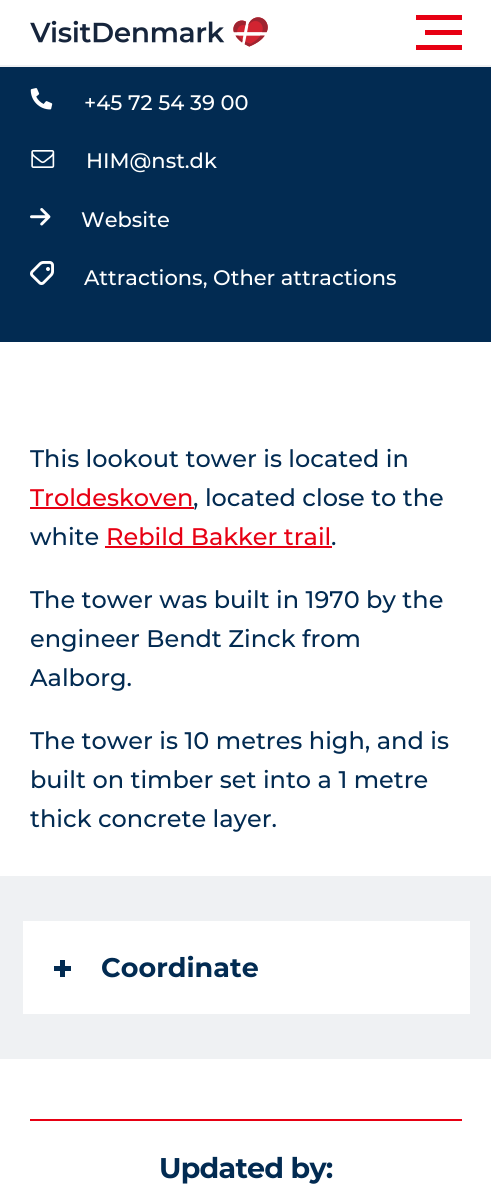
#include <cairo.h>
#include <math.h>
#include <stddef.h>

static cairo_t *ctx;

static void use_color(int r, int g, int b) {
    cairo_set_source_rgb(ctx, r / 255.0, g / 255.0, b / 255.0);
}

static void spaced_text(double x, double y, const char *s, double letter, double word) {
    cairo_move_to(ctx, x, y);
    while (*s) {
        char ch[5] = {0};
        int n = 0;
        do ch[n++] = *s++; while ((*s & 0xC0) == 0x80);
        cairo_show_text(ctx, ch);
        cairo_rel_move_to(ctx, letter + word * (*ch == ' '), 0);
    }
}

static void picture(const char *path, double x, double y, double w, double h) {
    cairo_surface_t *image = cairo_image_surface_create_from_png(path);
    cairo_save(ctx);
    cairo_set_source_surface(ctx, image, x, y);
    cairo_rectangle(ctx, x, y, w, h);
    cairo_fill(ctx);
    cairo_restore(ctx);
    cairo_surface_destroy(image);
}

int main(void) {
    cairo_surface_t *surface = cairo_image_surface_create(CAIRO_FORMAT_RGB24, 491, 1197);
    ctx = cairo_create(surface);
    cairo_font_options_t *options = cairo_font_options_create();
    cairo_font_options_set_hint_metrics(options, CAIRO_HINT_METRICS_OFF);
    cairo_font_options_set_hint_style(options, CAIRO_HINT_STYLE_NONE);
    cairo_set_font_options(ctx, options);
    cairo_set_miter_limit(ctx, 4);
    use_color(255, 255, 255);
    cairo_paint(ctx);
    use_color(240, 241, 243);
    cairo_rectangle(ctx, 0, 65, 491, 2);
    cairo_fill(ctx);
    picture("img1.png", 30, 17, 238, 30);
    use_color(231, 0, 19);
    cairo_rectangle(ctx, 416, 15, 46, 5);
    cairo_fill(ctx);
    cairo_rectangle(ctx, 425, 30, 37, 5);
    cairo_fill(ctx);
    cairo_rectangle(ctx, 416, 45, 46, 5);
    cairo_fill(ctx);
    use_color(2, 43, 82);
    cairo_rectangle(ctx, 0, 67, 491, 275);
    cairo_fill(ctx);
    picture("img2.png", 30, 88, 23, 22);
    cairo_select_font_face(ctx, "Montserrat Medium", CAIRO_FONT_SLANT_NORMAL, CAIRO_FONT_WEIGHT_NORMAL);
    cairo_set_font_size(ctx, 21);
    use_color(255, 255, 255);
    cairo_move_to(ctx, 84, 110);
    cairo_show_text(ctx, "+45 72 54 39 00");
    picture("img3.png", 31, 150, 24, 18);
    cairo_move_to(ctx, 86, 168);
    cairo_show_text(ctx, "HIM@nst.dk");
    picture("img4.png", 30, 208, 21, 18);
    cairo_move_to(ctx, 81, 227);
    cairo_show_text(ctx, "Website");
    picture("img5.png", 30, 261, 24, 24);
    cairo_move_to(ctx, 84, 285);
    cairo_show_text(ctx, "Attractions, Other attractions");
    cairo_set_font_size(ctx, 24);
    use_color(2, 43, 82);
    cairo_move_to(ctx, 30, 467);
    cairo_show_text(ctx, "This lookout tower is located in");
    use_color(231, 0, 19);
    cairo_move_to(ctx, 30, 506);
    cairo_show_text(ctx, "Troldeskoven");
    cairo_rectangle(ctx, 30, 507, 164, 2);
    cairo_fill(ctx);
    use_color(2, 43, 82);
    cairo_move_to(ctx, 193, 506);
    cairo_show_text(ctx, ", located close to the");
    cairo_move_to(ctx, 30, 545);
    cairo_show_text(ctx, "white");
    use_color(231, 0, 19);
    cairo_move_to(ctx, 106, 545);
    cairo_show_text(ctx, "Rebild Bakker trail");
    cairo_rectangle(ctx, 105, 546, 227, 2);
    cairo_fill(ctx);
    use_color(2, 43, 82);
    cairo_move_to(ctx, 331, 545);
    cairo_show_text(ctx, ".");
    cairo_move_to(ctx, 30, 608);
    cairo_show_text(ctx, "The tower was built in 1970 by the");
    cairo_move_to(ctx, 30, 647);
    cairo_show_text(ctx, "engineer Bendt Zinck from");
    cairo_move_to(ctx, 30, 686);
    cairo_show_text(ctx, "Aalborg.");
    cairo_move_to(ctx, 30, 749);
    cairo_show_text(ctx, "The tower is 10 metres high, and is");
    cairo_move_to(ctx, 30, 788);
    cairo_show_text(ctx, "built on timber set into a 1 metre");
    cairo_move_to(ctx, 30, 827);
    cairo_show_text(ctx, "thick concrete layer.");
    use_color(239, 241, 243);
    cairo_rectangle(ctx, 0, 876, 491, 183);
    cairo_fill(ctx);
    use_color(255, 255, 255);
    cairo_rectangle(ctx, 23, 921, 447, 93);
    cairo_fill(ctx);
    use_color(2, 43, 82);
    cairo_rectangle(ctx, 54, 966, 17, 5);
    cairo_fill(ctx);
    cairo_rectangle(ctx, 60, 960, 5, 17);
    cairo_fill(ctx);
    cairo_select_font_face(ctx, "Montserrat", CAIRO_FONT_SLANT_NORMAL, CAIRO_FONT_WEIGHT_BOLD);
    cairo_set_font_size(ctx, 27);
    cairo_move_to(ctx, 101, 977);
    cairo_show_text(ctx, "Coordinate");
    use_color(231, 0, 19);
    cairo_rectangle(ctx, 30, 1119, 432, 2);
    cairo_fill(ctx);
    cairo_set_font_size(ctx, 28.5);
    use_color(2, 43, 82);
    spaced_text(159, 1178, "Updated by:", -0.75, 0);
    cairo_surface_write_to_png(surface, "result.png");
    cairo_font_options_destroy(options);
    cairo_destroy(ctx);
    cairo_surface_destroy(surface);
    return 0;
}
